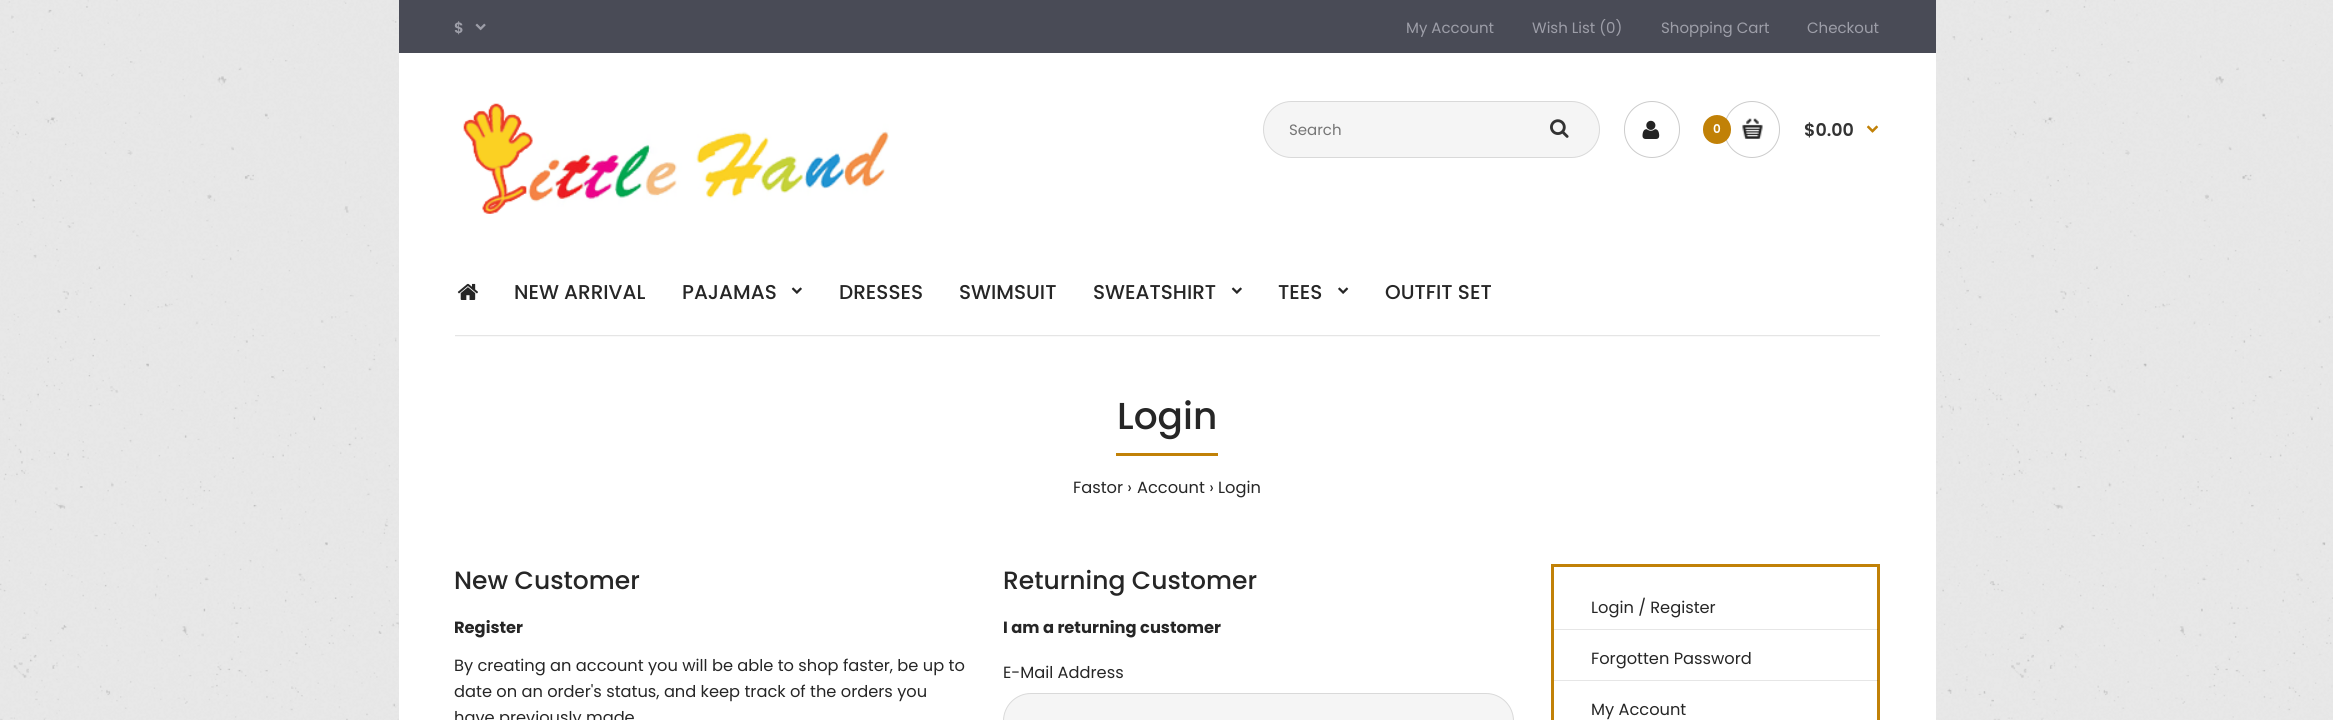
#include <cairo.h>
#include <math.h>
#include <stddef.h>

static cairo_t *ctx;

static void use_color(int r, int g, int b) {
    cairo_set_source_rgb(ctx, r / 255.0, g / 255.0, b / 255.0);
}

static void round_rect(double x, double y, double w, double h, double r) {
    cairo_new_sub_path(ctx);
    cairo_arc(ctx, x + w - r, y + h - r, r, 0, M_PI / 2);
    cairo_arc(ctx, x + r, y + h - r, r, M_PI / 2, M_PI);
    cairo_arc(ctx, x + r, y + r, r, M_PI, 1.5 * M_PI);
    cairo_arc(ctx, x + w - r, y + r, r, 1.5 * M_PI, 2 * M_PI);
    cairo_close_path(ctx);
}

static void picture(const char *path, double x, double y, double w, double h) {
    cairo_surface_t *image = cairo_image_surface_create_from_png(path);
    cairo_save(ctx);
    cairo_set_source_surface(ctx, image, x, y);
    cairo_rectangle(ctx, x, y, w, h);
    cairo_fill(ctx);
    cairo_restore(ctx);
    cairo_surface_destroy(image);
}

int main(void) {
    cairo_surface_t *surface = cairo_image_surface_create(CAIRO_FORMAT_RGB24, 2333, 720);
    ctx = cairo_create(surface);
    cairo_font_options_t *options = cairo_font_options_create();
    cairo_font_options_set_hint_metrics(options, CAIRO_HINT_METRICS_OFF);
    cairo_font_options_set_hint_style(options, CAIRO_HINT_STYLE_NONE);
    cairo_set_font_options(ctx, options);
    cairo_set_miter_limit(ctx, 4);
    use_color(255, 255, 255);
    cairo_paint(ctx);
    picture("img1.png", 0, 0, 2333, 720);
    use_color(255, 255, 255);
    cairo_rectangle(ctx, 399, 53, 1537, 667);
    cairo_fill(ctx);
    use_color(73, 75, 86);
    cairo_rectangle(ctx, 399, 0, 1537, 53);
    cairo_fill(ctx);
    cairo_select_font_face(ctx, "Poppins SemiBold", CAIRO_FONT_SLANT_NORMAL, CAIRO_FONT_WEIGHT_NORMAL);
    cairo_set_font_size(ctx, 15);
    use_color(157, 158, 168);
    cairo_move_to(ctx, 454, 33);
    cairo_show_text(ctx, "$");
    picture("img2.png", 475, 23, 11, 8);
    cairo_select_font_face(ctx, "Poppins", CAIRO_FONT_SLANT_NORMAL, CAIRO_FONT_WEIGHT_NORMAL);
    cairo_move_to(ctx, 1406, 33);
    cairo_show_text(ctx, "My Account");
    cairo_move_to(ctx, 1532, 33);
    cairo_show_text(ctx, "Wish List (0)");
    cairo_move_to(ctx, 1661, 33);
    cairo_show_text(ctx, "Shopping Cart");
    cairo_move_to(ctx, 1807, 33);
    cairo_show_text(ctx, "Checkout");
    picture("img3.png", 463, 103, 426, 111);
    use_color(245, 245, 245);
    round_rect(1263.5, 101.5, 336, 56, 28);
    cairo_fill_preserve(ctx);
    use_color(217, 217, 217);
    cairo_set_line_width(ctx, 1);
    cairo_stroke(ctx);
    use_color(117, 117, 117);
    cairo_move_to(ctx, 1289, 135);
    cairo_show_text(ctx, "Search");
    picture("img4.png", 1550, 119, 19, 19);
    round_rect(1624.5, 101.5, 55, 56, 27.5);
    use_color(204, 204, 204);
    cairo_stroke(ctx);
    picture("img5.png", 1642, 120, 18, 19);
    round_rect(1724.5, 101.5, 55, 56, 27.5);
    cairo_stroke(ctx);
    use_color(193, 129, 7);
    round_rect(1703, 115, 28, 29, 14);
    cairo_fill(ctx);
    cairo_select_font_face(ctx, "Poppins SemiBold", CAIRO_FONT_SLANT_NORMAL, CAIRO_FONT_WEIGHT_NORMAL);
    cairo_set_font_size(ctx, 12);
    use_color(255, 255, 255);
    cairo_move_to(ctx, 1713, 133);
    cairo_show_text(ctx, "0");
    picture("img6.png", 1742, 118, 21, 21);
    cairo_set_font_size(ctx, 17.5);
    use_color(51, 51, 51);
    cairo_move_to(ctx, 1804, 136);
    cairo_show_text(ctx, "$0.00");
    picture("img7.png", 1866, 125, 13, 8);
    picture("img8.png", 455, 335, 1425, 2);
    picture("img9.png", 457, 283, 21, 17);
    cairo_select_font_face(ctx, "Poppins Medium", CAIRO_FONT_SLANT_NORMAL, CAIRO_FONT_WEIGHT_NORMAL);
    cairo_set_font_size(ctx, 20);
    use_color(38, 38, 38);
    cairo_move_to(ctx, 514, 299);
    cairo_show_text(ctx, "NEW ARRIVAL");
    cairo_move_to(ctx, 682, 299);
    cairo_show_text(ctx, "PAJAMAS");
    picture("img10.png", 791, 287, 11, 7);
    cairo_move_to(ctx, 839, 299);
    cairo_show_text(ctx, "DRESSES");
    cairo_move_to(ctx, 959, 299);
    cairo_show_text(ctx, "SWIMSUIT");
    cairo_move_to(ctx, 1093, 299);
    cairo_show_text(ctx, "SWEATSHIRT");
    picture("img10.png", 1231, 287, 11, 7);
    cairo_move_to(ctx, 1278, 299);
    cairo_show_text(ctx, "TEES");
    picture("img11.png", 1338, 287, 11, 7);
    cairo_move_to(ctx, 1385, 299);
    cairo_show_text(ctx, "OUTFIT SET");
    use_color(193, 129, 7);
    cairo_rectangle(ctx, 1116, 453, 102, 3);
    cairo_fill(ctx);
    cairo_set_font_size(ctx, 37.5);
    use_color(38, 38, 38);
    cairo_move_to(ctx, 1117, 429);
    cairo_show_text(ctx, "Login");
    cairo_select_font_face(ctx, "Poppins", CAIRO_FONT_SLANT_NORMAL, CAIRO_FONT_WEIGHT_NORMAL);
    cairo_set_font_size(ctx, 16.25);
    cairo_move_to(ctx, 1073, 493);
    cairo_show_text(ctx, "Fastor ›");
    cairo_move_to(ctx, 1137, 493);
    cairo_show_text(ctx, "Account ›");
    cairo_move_to(ctx, 1218, 493);
    cairo_show_text(ctx, "Login");
    cairo_select_font_face(ctx, "Poppins Medium", CAIRO_FONT_SLANT_NORMAL, CAIRO_FONT_WEIGHT_NORMAL);
    cairo_set_font_size(ctx, 25);
    cairo_move_to(ctx, 454, 589);
    cairo_show_text(ctx, "New Customer");
    cairo_select_font_face(ctx, "Poppins", CAIRO_FONT_SLANT_NORMAL, CAIRO_FONT_WEIGHT_BOLD);
    cairo_set_font_size(ctx, 16.25);
    cairo_move_to(ctx, 454, 633);
    cairo_show_text(ctx, "Register");
    cairo_select_font_face(ctx, "Poppins", CAIRO_FONT_SLANT_NORMAL, CAIRO_FONT_WEIGHT_NORMAL);
    cairo_move_to(ctx, 454, 671);
    cairo_show_text(ctx, "By creating an account you will be able to shop faster, be up to");
    cairo_move_to(ctx, 454, 697);
    cairo_show_text(ctx, "date on an order's status, and keep track of the orders you");
    cairo_move_to(ctx, 454, 723);
    cairo_show_text(ctx, "have previously made");
    cairo_select_font_face(ctx, "Poppins Medium", CAIRO_FONT_SLANT_NORMAL, CAIRO_FONT_WEIGHT_NORMAL);
    cairo_set_font_size(ctx, 25);
    cairo_move_to(ctx, 1003, 589);
    cairo_show_text(ctx, "Returning Customer");
    cairo_select_font_face(ctx, "Poppins", CAIRO_FONT_SLANT_NORMAL, CAIRO_FONT_WEIGHT_BOLD);
    cairo_set_font_size(ctx, 16.25);
    cairo_move_to(ctx, 1003, 633);
    cairo_show_text(ctx, "I am a returning customer");
    cairo_select_font_face(ctx, "Poppins", CAIRO_FONT_SLANT_NORMAL, CAIRO_FONT_WEIGHT_NORMAL);
    cairo_move_to(ctx, 1003, 678);
    cairo_show_text(ctx, "E-Mail Address");
    use_color(245, 245, 245);
    round_rect(1003.5, 693.5, 510, 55, 27.5);
    cairo_fill_preserve(ctx);
    use_color(217, 217, 217);
    cairo_stroke(ctx);
    cairo_rectangle(ctx, 1552.5, 565.5, 326, 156);
    use_color(193, 129, 7);
    cairo_set_line_width(ctx, 3);
    cairo_stroke(ctx);
    use_color(38, 38, 38);
    cairo_move_to(ctx, 1591, 613);
    cairo_show_text(ctx, "Login / Register");
    cairo_set_source_rgba(ctx, 0, 0, 0, 0.1);
    cairo_rectangle(ctx, 1554, 629, 324, 1);
    cairo_fill(ctx);
    use_color(38, 38, 38);
    cairo_move_to(ctx, 1591, 664);
    cairo_show_text(ctx, "Forgotten Password");
    cairo_set_source_rgba(ctx, 0, 0, 0, 0.1);
    cairo_rectangle(ctx, 1554, 680, 324, 1);
    cairo_fill(ctx);
    use_color(38, 38, 38);
    cairo_move_to(ctx, 1591, 715);
    cairo_show_text(ctx, "My Account");
    cairo_surface_write_to_png(surface, "result.png");
    cairo_font_options_destroy(options);
    cairo_destroy(ctx);
    cairo_surface_destroy(surface);
    return 0;
}
